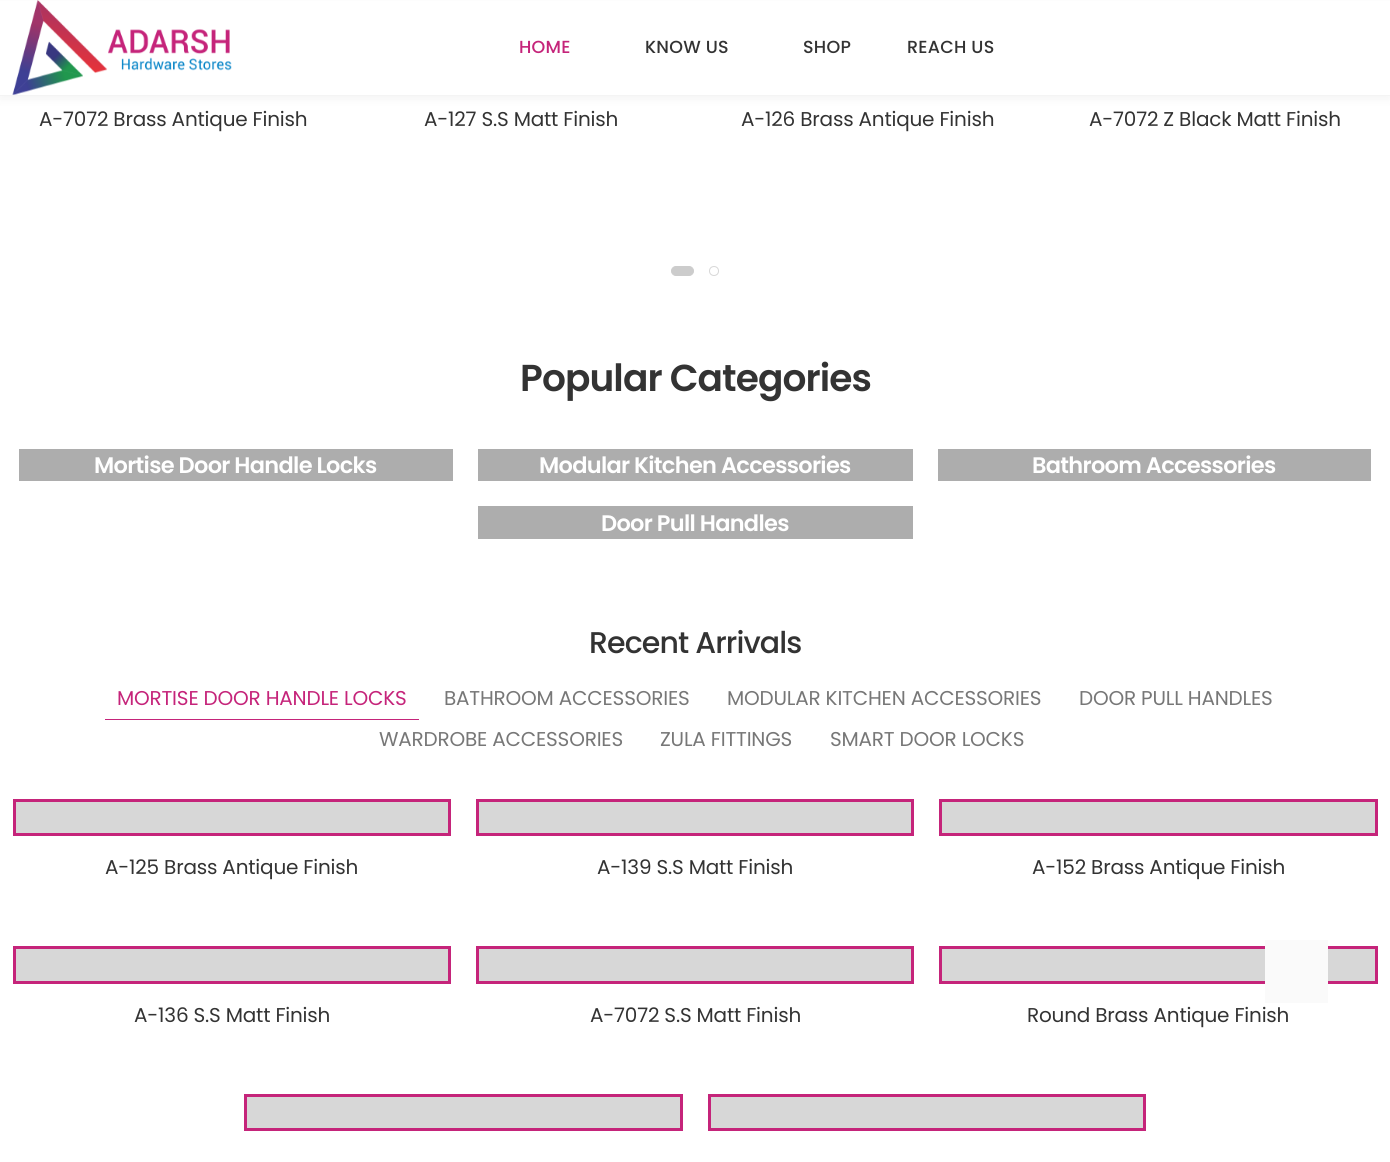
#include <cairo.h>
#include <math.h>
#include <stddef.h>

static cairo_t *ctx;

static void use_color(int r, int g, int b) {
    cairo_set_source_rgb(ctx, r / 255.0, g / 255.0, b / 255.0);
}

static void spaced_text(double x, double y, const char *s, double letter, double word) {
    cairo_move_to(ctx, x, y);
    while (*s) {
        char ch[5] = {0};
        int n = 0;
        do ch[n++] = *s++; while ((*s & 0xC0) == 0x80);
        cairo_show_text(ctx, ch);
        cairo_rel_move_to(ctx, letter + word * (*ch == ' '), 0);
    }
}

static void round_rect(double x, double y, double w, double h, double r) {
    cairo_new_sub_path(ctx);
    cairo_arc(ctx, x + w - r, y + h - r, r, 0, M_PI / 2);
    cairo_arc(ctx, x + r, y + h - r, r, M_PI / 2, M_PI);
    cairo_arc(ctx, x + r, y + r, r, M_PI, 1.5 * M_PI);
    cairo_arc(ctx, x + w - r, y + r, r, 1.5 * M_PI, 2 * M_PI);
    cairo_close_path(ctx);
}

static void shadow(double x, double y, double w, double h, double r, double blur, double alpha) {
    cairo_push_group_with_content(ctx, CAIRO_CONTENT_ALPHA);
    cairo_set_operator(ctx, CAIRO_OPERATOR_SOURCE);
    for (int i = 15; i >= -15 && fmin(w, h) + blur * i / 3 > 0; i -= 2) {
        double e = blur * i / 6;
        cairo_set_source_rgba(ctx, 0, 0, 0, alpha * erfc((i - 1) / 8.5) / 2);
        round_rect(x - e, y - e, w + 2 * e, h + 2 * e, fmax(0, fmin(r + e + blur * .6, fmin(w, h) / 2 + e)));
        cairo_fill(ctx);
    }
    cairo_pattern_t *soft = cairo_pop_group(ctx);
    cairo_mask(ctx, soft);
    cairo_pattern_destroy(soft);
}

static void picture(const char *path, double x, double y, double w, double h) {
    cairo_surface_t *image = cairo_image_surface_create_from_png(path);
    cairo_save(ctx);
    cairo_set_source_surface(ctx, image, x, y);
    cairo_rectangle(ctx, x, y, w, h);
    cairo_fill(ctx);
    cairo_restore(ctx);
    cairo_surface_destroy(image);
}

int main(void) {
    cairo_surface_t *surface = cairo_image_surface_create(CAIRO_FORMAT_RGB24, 1390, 1162);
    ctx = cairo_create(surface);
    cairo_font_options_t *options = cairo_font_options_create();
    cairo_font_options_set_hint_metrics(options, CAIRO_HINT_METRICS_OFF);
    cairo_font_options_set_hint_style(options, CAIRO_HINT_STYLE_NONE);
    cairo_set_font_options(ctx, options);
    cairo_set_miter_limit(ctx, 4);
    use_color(255, 255, 255);
    cairo_paint(ctx);
    use_color(51, 51, 51);
    shadow(0, 4, 1390, 96, 0, 4, 0.05);
    use_color(255, 255, 255);
    cairo_rectangle(ctx, 0, 1, 1390, 94);
    cairo_fill(ctx);
    use_color(244, 244, 244);
    cairo_rectangle(ctx, 0, 95, 1390, 1);
    cairo_fill(ctx);
    picture("img1.png", 12, 0, 220, 95);
    cairo_select_font_face(ctx, "Poppins Medium", CAIRO_FONT_SLANT_NORMAL, CAIRO_FONT_WEIGHT_NORMAL);
    cairo_set_font_size(ctx, 17.5);
    use_color(197, 36, 122);
    spaced_text(519, 53, "HOME", 0.25, 0);
    use_color(51, 51, 51);
    spaced_text(645, 53, "KNOW US", 0.25, 0);
    spaced_text(803, 53, "SHOP", 0.25, 0);
    spaced_text(907, 53, "REACH US", 0.25, 0);
    cairo_select_font_face(ctx, "Poppins", CAIRO_FONT_SLANT_NORMAL, CAIRO_FONT_WEIGHT_NORMAL);
    cairo_set_font_size(ctx, 20);
    spaced_text(39, 126, "A-7072 Brass Antique Finish", -0.2, 0);
    spaced_text(424, 126, "A-127 S.S Matt Finish", -0.2, 0);
    spaced_text(741, 126, "A-126 Brass Antique Finish", -0.2, 0);
    spaced_text(1089, 126, "A-7072 Z Black Matt Finish", -0.2, 0);
    use_color(204, 204, 204);
    round_rect(671.5, 266.5, 22, 9, 4.5);
    cairo_fill_preserve(ctx);
    cairo_set_line_width(ctx, 1);
    cairo_stroke(ctx);
    cairo_arc(ctx, 714, 271, 4.5, 0, 2 * M_PI);
    use_color(215, 215, 215);
    cairo_stroke(ctx);
    cairo_select_font_face(ctx, "Poppins SemiBold", CAIRO_FONT_SLANT_NORMAL, CAIRO_FONT_WEIGHT_NORMAL);
    cairo_set_font_size(ctx, 37.5);
    use_color(51, 51, 51);
    spaced_text(520, 391, "Popular Categories", -0.9, 0);
    use_color(173, 173, 173);
    cairo_rectangle(ctx, 19, 449, 434, 32);
    cairo_fill(ctx);
    cairo_set_font_size(ctx, 22.5);
    use_color(255, 255, 255);
    spaced_text(94, 473, "Mortise Door Handle Locks", -0.7, 0);
    use_color(173, 173, 173);
    cairo_rectangle(ctx, 478, 449, 435, 32);
    cairo_fill(ctx);
    use_color(255, 255, 255);
    spaced_text(539, 473, "Modular Kitchen Accessories", -0.7, 0);
    use_color(173, 173, 173);
    cairo_rectangle(ctx, 478, 506, 435, 33);
    cairo_fill(ctx);
    use_color(255, 255, 255);
    spaced_text(601, 531, "Door Pull Handles", -0.7, 0);
    use_color(173, 173, 173);
    cairo_rectangle(ctx, 938, 449, 433, 32);
    cairo_fill(ctx);
    use_color(255, 255, 255);
    spaced_text(1032, 473, "Bathroom Accessories", -0.7, 0);
    cairo_select_font_face(ctx, "Poppins Medium", CAIRO_FONT_SLANT_NORMAL, CAIRO_FONT_WEIGHT_NORMAL);
    cairo_set_font_size(ctx, 30);
    use_color(51, 51, 51);
    spaced_text(589, 653, "Recent Arrivals", -0.9, 0);
    cairo_select_font_face(ctx, "Poppins", CAIRO_FONT_SLANT_NORMAL, CAIRO_FONT_WEIGHT_NORMAL);
    cairo_set_font_size(ctx, 20);
    use_color(197, 36, 122);
    spaced_text(117, 705, "MORTISE DOOR HANDLE LOCKS", -0.2, 0);
    cairo_rectangle(ctx, 105, 719, 314, 1);
    cairo_fill(ctx);
    use_color(119, 119, 119);
    spaced_text(444, 705, "BATHROOM ACCESSORIES", -0.2, 0);
    spaced_text(727, 705, "MODULAR KITCHEN ACCESSORIES", -0.2, 0);
    spaced_text(1079, 705, "DOOR PULL HANDLES", -0.2, 0);
    spaced_text(379, 746, "WARDROBE ACCESSORIES", -0.2, 0);
    spaced_text(660, 746, "ZULA FITTINGS", -0.2, 0);
    spaced_text(830, 746, "SMART DOOR LOCKS", -0.2, 0);
    use_color(215, 215, 215);
    cairo_rectangle(ctx, 14.5, 800.5, 435, 34);
    cairo_fill_preserve(ctx);
    use_color(197, 36, 122);
    cairo_set_line_width(ctx, 3);
    cairo_stroke(ctx);
    use_color(51, 51, 51);
    spaced_text(105, 874, "A-125 Brass Antique Finish", -0.2, 0);
    use_color(215, 215, 215);
    cairo_rectangle(ctx, 477.5, 800.5, 435, 34);
    cairo_fill_preserve(ctx);
    use_color(197, 36, 122);
    cairo_stroke(ctx);
    use_color(51, 51, 51);
    spaced_text(597, 874, "A-139 S.S Matt Finish", -0.2, 0);
    use_color(215, 215, 215);
    cairo_rectangle(ctx, 940.5, 800.5, 436, 34);
    cairo_fill_preserve(ctx);
    use_color(197, 36, 122);
    cairo_stroke(ctx);
    use_color(51, 51, 51);
    spaced_text(1032, 874, "A-152 Brass Antique Finish", -0.2, 0);
    use_color(215, 215, 215);
    cairo_rectangle(ctx, 14.5, 947.5, 435, 35);
    cairo_fill_preserve(ctx);
    use_color(197, 36, 122);
    cairo_stroke(ctx);
    use_color(51, 51, 51);
    spaced_text(134, 1022, "A-136 S.S Matt Finish", -0.2, 0);
    use_color(215, 215, 215);
    cairo_rectangle(ctx, 477.5, 947.5, 435, 35);
    cairo_fill_preserve(ctx);
    use_color(197, 36, 122);
    cairo_stroke(ctx);
    use_color(51, 51, 51);
    spaced_text(590, 1022, "A-7072 S.S Matt Finish", -0.2, 0);
    use_color(215, 215, 215);
    cairo_rectangle(ctx, 940.5, 947.5, 436, 35);
    cairo_fill_preserve(ctx);
    use_color(197, 36, 122);
    cairo_stroke(ctx);
    use_color(51, 51, 51);
    spaced_text(1027, 1022, "Round Brass Antique Finish", -0.2, 0);
    use_color(215, 215, 215);
    cairo_rectangle(ctx, 245.5, 1095.5, 436, 34);
    cairo_fill_preserve(ctx);
    use_color(197, 36, 122);
    cairo_stroke(ctx);
    use_color(215, 215, 215);
    cairo_rectangle(ctx, 709.5, 1095.5, 435, 34);
    cairo_fill_preserve(ctx);
    use_color(197, 36, 122);
    cairo_stroke(ctx);
    use_color(250, 250, 250);
    cairo_rectangle(ctx, 1265, 940, 63, 63);
    cairo_fill(ctx);
    cairo_surface_write_to_png(surface, "result.png");
    cairo_font_options_destroy(options);
    cairo_destroy(ctx);
    cairo_surface_destroy(surface);
    return 0;
}
